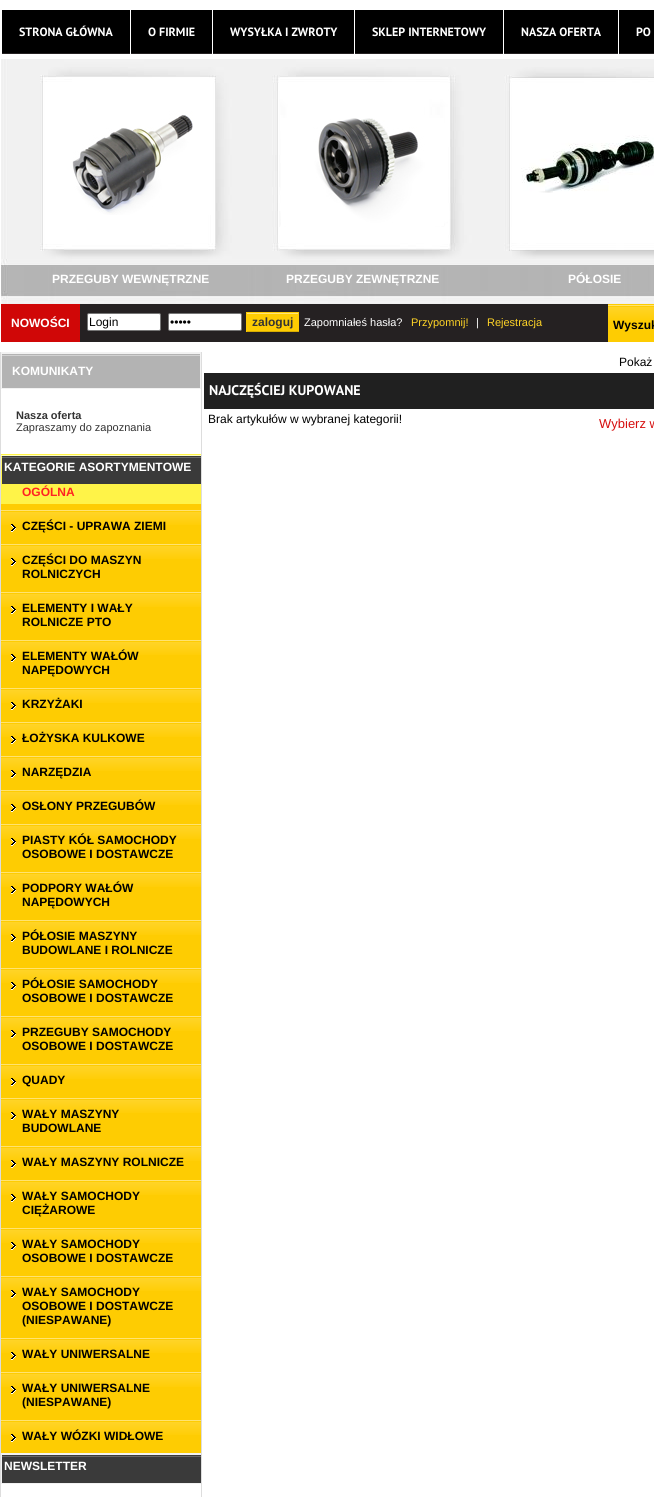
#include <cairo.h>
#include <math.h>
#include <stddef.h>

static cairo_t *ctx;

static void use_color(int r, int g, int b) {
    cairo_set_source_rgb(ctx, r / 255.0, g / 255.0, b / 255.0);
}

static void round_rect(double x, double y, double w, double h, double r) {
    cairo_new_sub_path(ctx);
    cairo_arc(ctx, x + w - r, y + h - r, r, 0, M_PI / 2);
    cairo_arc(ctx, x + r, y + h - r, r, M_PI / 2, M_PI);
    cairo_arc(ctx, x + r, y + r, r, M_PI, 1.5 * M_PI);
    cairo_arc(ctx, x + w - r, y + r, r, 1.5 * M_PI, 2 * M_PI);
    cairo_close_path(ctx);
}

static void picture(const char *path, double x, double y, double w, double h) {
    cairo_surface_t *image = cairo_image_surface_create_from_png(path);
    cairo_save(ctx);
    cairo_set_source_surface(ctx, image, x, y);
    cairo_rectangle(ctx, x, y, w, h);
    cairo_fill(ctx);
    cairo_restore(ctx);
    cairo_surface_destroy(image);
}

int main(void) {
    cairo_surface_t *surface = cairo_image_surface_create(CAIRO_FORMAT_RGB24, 654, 1497);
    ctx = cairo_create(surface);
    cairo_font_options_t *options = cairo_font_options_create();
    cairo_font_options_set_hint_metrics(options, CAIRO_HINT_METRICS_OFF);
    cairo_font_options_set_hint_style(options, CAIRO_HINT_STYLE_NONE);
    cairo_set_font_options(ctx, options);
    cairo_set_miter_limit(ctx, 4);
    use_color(255, 255, 255);
    cairo_paint(ctx);
    use_color(0, 0, 0);
    cairo_rectangle(ctx, 2, 10, 652, 43);
    cairo_fill(ctx);
    use_color(37, 33, 34);
    cairo_rectangle(ctx, 1, 53, 653, 1);
    cairo_fill(ctx);
    use_color(255, 255, 255);
    cairo_rectangle(ctx, 1, 53, 1, 1);
    cairo_fill(ctx);
    cairo_select_font_face(ctx, "PT Sans", CAIRO_FONT_SLANT_NORMAL, CAIRO_FONT_WEIGHT_BOLD);
    cairo_set_font_size(ctx, 12);
    cairo_move_to(ctx, 19, 36);
    cairo_show_text(ctx, "STRONA GŁÓWNA");
    cairo_rectangle(ctx, 130, 10, 1, 44);
    cairo_fill(ctx);
    cairo_move_to(ctx, 148, 36);
    cairo_show_text(ctx, "O FIRMIE");
    cairo_rectangle(ctx, 212, 10, 1, 44);
    cairo_fill(ctx);
    cairo_move_to(ctx, 230, 36);
    cairo_show_text(ctx, "WYSYŁKA I ZWROTY");
    cairo_rectangle(ctx, 354, 10, 1, 44);
    cairo_fill(ctx);
    cairo_move_to(ctx, 372, 36);
    cairo_show_text(ctx, "SKLEP INTERNETOWY");
    cairo_rectangle(ctx, 503, 10, 1, 44);
    cairo_fill(ctx);
    cairo_move_to(ctx, 521, 36);
    cairo_show_text(ctx, "NASZA OFERTA");
    cairo_rectangle(ctx, 618, 10, 1, 44);
    cairo_fill(ctx);
    cairo_move_to(ctx, 636, 36);
    cairo_show_text(ctx, "PO");
    picture("img1.png", 1, 59, 653, 245);
    picture("img2.png", 72, 79, 141, 136);
    cairo_select_font_face(ctx, "Liberation Sans", CAIRO_FONT_SLANT_NORMAL, CAIRO_FONT_WEIGHT_BOLD);
    cairo_move_to(ctx, 52, 283);
    cairo_show_text(ctx, "PRZEGUBY WEWNĘTRZNE");
    picture("img3.png", 281, 118, 163, 108);
    cairo_move_to(ctx, 286, 283);
    cairo_show_text(ctx, "PRZEGUBY ZEWNĘTRZNE");
    picture("img4.png", 521, 135, 133, 58);
    cairo_move_to(ctx, 568, 283);
    cairo_show_text(ctx, "PÓŁOSIE");
    use_color(37, 33, 34);
    cairo_rectangle(ctx, 80, 304, 528, 38);
    cairo_fill(ctx);
    use_color(208, 7, 7);
    cairo_rectangle(ctx, 1, 304, 79, 38);
    cairo_fill(ctx);
    use_color(255, 255, 255);
    cairo_move_to(ctx, 11, 327);
    cairo_show_text(ctx, "NOWOŚCI");
    round_rect(87.5, 313.5, 73, 17, 1.5);
    cairo_fill_preserve(ctx);
    use_color(118, 118, 118);
    cairo_set_line_width(ctx, 1);
    cairo_stroke(ctx);
    cairo_select_font_face(ctx, "Liberation Sans", CAIRO_FONT_SLANT_NORMAL, CAIRO_FONT_WEIGHT_NORMAL);
    use_color(0, 0, 0);
    cairo_move_to(ctx, 89, 326);
    cairo_show_text(ctx, "Login");
    use_color(255, 255, 255);
    round_rect(168.5, 313.5, 73, 17, 1.5);
    cairo_fill_preserve(ctx);
    use_color(118, 118, 118);
    cairo_stroke(ctx);
    use_color(0, 0, 0);
    cairo_move_to(ctx, 170, 326);
    cairo_show_text(ctx, "•••••");
    use_color(254, 204, 2);
    cairo_rectangle(ctx, 247, 312, 51, 19);
    cairo_fill(ctx);
    use_color(255, 228, 118);
    cairo_rectangle(ctx, 246, 313, 53, 1);
    cairo_fill(ctx);
    use_color(254, 204, 2);
    cairo_rectangle(ctx, 298, 312, 1, 20);
    cairo_fill(ctx);
    use_color(216, 173, 2);
    cairo_rectangle(ctx, 246, 331, 53, 1);
    cairo_fill(ctx);
    use_color(254, 204, 2);
    cairo_rectangle(ctx, 246, 312, 1, 20);
    cairo_fill(ctx);
    cairo_select_font_face(ctx, "Liberation Sans", CAIRO_FONT_SLANT_NORMAL, CAIRO_FONT_WEIGHT_BOLD);
    use_color(51, 51, 51);
    cairo_move_to(ctx, 252, 326);
    cairo_show_text(ctx, "zaloguj");
    cairo_select_font_face(ctx, "Liberation Sans", CAIRO_FONT_SLANT_NORMAL, CAIRO_FONT_WEIGHT_NORMAL);
    cairo_set_font_size(ctx, 11);
    use_color(255, 255, 255);
    cairo_move_to(ctx, 304, 326);
    cairo_show_text(ctx, "Zapomniałeś hasła?");
    use_color(255, 212, 38);
    cairo_move_to(ctx, 411, 326);
    cairo_show_text(ctx, "Przypomnij!");
    use_color(255, 255, 255);
    cairo_move_to(ctx, 476, 326);
    cairo_show_text(ctx, "|");
    use_color(255, 212, 38);
    cairo_move_to(ctx, 487, 326);
    cairo_show_text(ctx, "Rejestracja");
    picture("img5.png", 608, 304, 46, 38);
    cairo_select_font_face(ctx, "Liberation Sans", CAIRO_FONT_SLANT_NORMAL, CAIRO_FONT_WEIGHT_BOLD);
    cairo_set_font_size(ctx, 12);
    use_color(0, 0, 0);
    cairo_move_to(ctx, 613, 329);
    cairo_show_text(ctx, "Wyszuk");
    use_color(242, 242, 242);
    cairo_rectangle(ctx, 1, 352, 200, 1132);
    cairo_fill(ctx);
    use_color(221, 221, 221);
    cairo_rectangle(ctx, 201, 352, 1, 1145);
    cairo_fill(ctx);
    cairo_rectangle(ctx, 0, 352, 1, 1145);
    cairo_fill(ctx);
    use_color(179, 179, 179);
    cairo_rectangle(ctx, 2, 354, 198, 34);
    cairo_fill(ctx);
    use_color(210, 210, 210);
    cairo_rectangle(ctx, 2, 355, 198, 1);
    cairo_fill(ctx);
    use_color(255, 255, 255);
    cairo_move_to(ctx, 12, 375);
    cairo_show_text(ctx, "KOMUNIKATY");
    cairo_rectangle(ctx, 1, 389, 200, 65);
    cairo_fill(ctx);
    cairo_set_font_size(ctx, 11);
    use_color(51, 51, 51);
    cairo_move_to(ctx, 16, 419);
    cairo_show_text(ctx, "Nasza oferta");
    cairo_select_font_face(ctx, "Liberation Sans", CAIRO_FONT_SLANT_NORMAL, CAIRO_FONT_WEIGHT_NORMAL);
    cairo_move_to(ctx, 16, 431);
    cairo_show_text(ctx, "Zapraszamy do zapoznania");
    picture("img6.png", 1, 454, 200, 50);
    use_color(58, 58, 58);
    cairo_rectangle(ctx, 2, 456, 199, 28);
    cairo_fill(ctx);
    use_color(104, 104, 104);
    cairo_rectangle(ctx, 2, 457, 199, 1);
    cairo_fill(ctx);
    cairo_select_font_face(ctx, "Liberation Sans", CAIRO_FONT_SLANT_NORMAL, CAIRO_FONT_WEIGHT_BOLD);
    cairo_set_font_size(ctx, 12);
    use_color(255, 255, 255);
    cairo_move_to(ctx, 4, 471);
    cairo_show_text(ctx, "KATEGORIE ASORTYMENTOWE");
    use_color(254, 204, 2);
    cairo_rectangle(ctx, 1, 504, 200, 949);
    cairo_fill(ctx);
    use_color(255, 34, 34);
    cairo_move_to(ctx, 22, 496);
    cairo_show_text(ctx, "OGÓLNA");
    picture("img7.png", 1, 510, 200, 15);
    picture("img8.png", 11, 524, 5, 8);
    use_color(0, 0, 0);
    cairo_move_to(ctx, 22, 530);
    cairo_show_text(ctx, "CZĘŚCI - UPRAWA ZIEMI");
    picture("img7.png", 1, 544, 200, 15);
    picture("img8.png", 11, 558, 5, 8);
    cairo_move_to(ctx, 22, 564);
    cairo_show_text(ctx, "CZĘŚCI DO MASZYN");
    cairo_move_to(ctx, 22, 578);
    cairo_show_text(ctx, "ROLNICZYCH");
    picture("img7.png", 1, 592, 200, 15);
    picture("img8.png", 11, 606, 5, 8);
    cairo_move_to(ctx, 22, 612);
    cairo_show_text(ctx, "ELEMENTY I WAŁY");
    cairo_move_to(ctx, 22, 626);
    cairo_show_text(ctx, "ROLNICZE PTO");
    picture("img7.png", 1, 640, 200, 15);
    picture("img8.png", 11, 654, 5, 8);
    cairo_move_to(ctx, 22, 660);
    cairo_show_text(ctx, "ELEMENTY WAŁÓW");
    cairo_move_to(ctx, 22, 674);
    cairo_show_text(ctx, "NAPĘDOWYCH");
    picture("img7.png", 1, 688, 200, 15);
    picture("img8.png", 11, 702, 5, 8);
    cairo_move_to(ctx, 22, 708);
    cairo_show_text(ctx, "KRZYŻAKI");
    picture("img7.png", 1, 722, 200, 15);
    picture("img8.png", 11, 736, 5, 8);
    cairo_move_to(ctx, 22, 742);
    cairo_show_text(ctx, "ŁOŻYSKA KULKOWE");
    picture("img7.png", 1, 756, 200, 15);
    picture("img8.png", 11, 770, 5, 8);
    cairo_move_to(ctx, 22, 776);
    cairo_show_text(ctx, "NARZĘDZIA");
    picture("img7.png", 1, 790, 200, 15);
    picture("img8.png", 11, 804, 5, 8);
    cairo_move_to(ctx, 22, 810);
    cairo_show_text(ctx, "OSŁONY PRZEGUBÓW");
    picture("img7.png", 1, 824, 200, 15);
    picture("img8.png", 11, 838, 5, 8);
    cairo_move_to(ctx, 22, 844);
    cairo_show_text(ctx, "PIASTY KÓŁ SAMOCHODY");
    cairo_move_to(ctx, 22, 858);
    cairo_show_text(ctx, "OSOBOWE I DOSTAWCZE");
    picture("img7.png", 1, 872, 200, 15);
    picture("img8.png", 11, 886, 5, 8);
    cairo_move_to(ctx, 22, 892);
    cairo_show_text(ctx, "PODPORY WAŁÓW");
    cairo_move_to(ctx, 22, 906);
    cairo_show_text(ctx, "NAPĘDOWYCH");
    picture("img7.png", 1, 920, 200, 15);
    picture("img8.png", 11, 934, 5, 8);
    cairo_move_to(ctx, 22, 940);
    cairo_show_text(ctx, "PÓŁOSIE MASZYNY");
    cairo_move_to(ctx, 22, 954);
    cairo_show_text(ctx, "BUDOWLANE I ROLNICZE");
    picture("img7.png", 1, 968, 200, 15);
    picture("img8.png", 11, 982, 5, 8);
    cairo_move_to(ctx, 22, 988);
    cairo_show_text(ctx, "PÓŁOSIE SAMOCHODY");
    cairo_move_to(ctx, 22, 1002);
    cairo_show_text(ctx, "OSOBOWE I DOSTAWCZE");
    picture("img7.png", 1, 1016, 200, 15);
    picture("img8.png", 11, 1030, 5, 8);
    cairo_move_to(ctx, 22, 1036);
    cairo_show_text(ctx, "PRZEGUBY SAMOCHODY");
    cairo_move_to(ctx, 22, 1050);
    cairo_show_text(ctx, "OSOBOWE I DOSTAWCZE");
    picture("img7.png", 1, 1064, 200, 15);
    picture("img8.png", 11, 1078, 5, 8);
    cairo_move_to(ctx, 22, 1084);
    cairo_show_text(ctx, "QUADY");
    picture("img7.png", 1, 1098, 200, 15);
    picture("img8.png", 11, 1112, 5, 8);
    cairo_move_to(ctx, 22, 1118);
    cairo_show_text(ctx, "WAŁY MASZYNY");
    cairo_move_to(ctx, 22, 1132);
    cairo_show_text(ctx, "BUDOWLANE");
    picture("img7.png", 1, 1146, 200, 15);
    picture("img8.png", 11, 1160, 5, 8);
    cairo_move_to(ctx, 22, 1166);
    cairo_show_text(ctx, "WAŁY MASZYNY ROLNICZE");
    picture("img7.png", 1, 1180, 200, 15);
    picture("img8.png", 11, 1194, 5, 8);
    cairo_move_to(ctx, 22, 1200);
    cairo_show_text(ctx, "WAŁY SAMOCHODY");
    cairo_move_to(ctx, 22, 1214);
    cairo_show_text(ctx, "CIĘŻAROWE");
    picture("img7.png", 1, 1228, 200, 15);
    picture("img8.png", 11, 1242, 5, 8);
    cairo_move_to(ctx, 22, 1248);
    cairo_show_text(ctx, "WAŁY SAMOCHODY");
    cairo_move_to(ctx, 22, 1262);
    cairo_show_text(ctx, "OSOBOWE I DOSTAWCZE");
    picture("img7.png", 1, 1276, 200, 15);
    picture("img8.png", 11, 1290, 5, 8);
    cairo_move_to(ctx, 22, 1296);
    cairo_show_text(ctx, "WAŁY SAMOCHODY");
    cairo_move_to(ctx, 22, 1310);
    cairo_show_text(ctx, "OSOBOWE I DOSTAWCZE");
    cairo_move_to(ctx, 22, 1324);
    cairo_show_text(ctx, "(NIESPAWANE)");
    picture("img7.png", 1, 1338, 200, 15);
    picture("img8.png", 11, 1352, 5, 8);
    cairo_move_to(ctx, 22, 1358);
    cairo_show_text(ctx, "WAŁY UNIWERSALNE");
    picture("img7.png", 1, 1372, 200, 15);
    picture("img8.png", 11, 1386, 5, 8);
    cairo_move_to(ctx, 22, 1392);
    cairo_show_text(ctx, "WAŁY UNIWERSALNE");
    cairo_move_to(ctx, 22, 1406);
    cairo_show_text(ctx, "(NIESPAWANE)");
    picture("img7.png", 1, 1420, 200, 15);
    picture("img8.png", 11, 1434, 5, 8);
    cairo_move_to(ctx, 22, 1440);
    cairo_show_text(ctx, "WAŁY WÓZKI WIDŁOWE");
    use_color(58, 58, 58);
    cairo_rectangle(ctx, 2, 1455, 199, 28);
    cairo_fill(ctx);
    use_color(104, 104, 104);
    cairo_rectangle(ctx, 2, 1456, 199, 1);
    cairo_fill(ctx);
    use_color(255, 255, 255);
    cairo_move_to(ctx, 4, 1470);
    cairo_show_text(ctx, "NEWSLETTER");
    cairo_select_font_face(ctx, "Liberation Sans", CAIRO_FONT_SLANT_NORMAL, CAIRO_FONT_WEIGHT_NORMAL);
    use_color(0, 0, 0);
    cairo_move_to(ctx, 619, 366);
    cairo_show_text(ctx, "Pokaż");
    use_color(32, 32, 32);
    cairo_rectangle(ctx, 204, 373, 450, 36);
    cairo_fill(ctx);
    cairo_select_font_face(ctx, "PT Sans", CAIRO_FONT_SLANT_NORMAL, CAIRO_FONT_WEIGHT_BOLD);
    cairo_set_font_size(ctx, 14);
    use_color(255, 255, 255);
    cairo_move_to(ctx, 209, 395);
    cairo_show_text(ctx, "NAJCZĘŚCIEJ KUPOWANE");
    cairo_select_font_face(ctx, "Liberation Sans", CAIRO_FONT_SLANT_NORMAL, CAIRO_FONT_WEIGHT_NORMAL);
    cairo_set_font_size(ctx, 12);
    use_color(0, 0, 0);
    cairo_move_to(ctx, 208, 423);
    cairo_show_text(ctx, "Brak artykułów w wybranej kategorii!");
    cairo_set_font_size(ctx, 13);
    use_color(214, 15, 15);
    cairo_move_to(ctx, 599, 428);
    cairo_show_text(ctx, "Wybierz w");
    cairo_surface_write_to_png(surface, "result.png");
    cairo_font_options_destroy(options);
    cairo_destroy(ctx);
    cairo_surface_destroy(surface);
    return 0;
}
